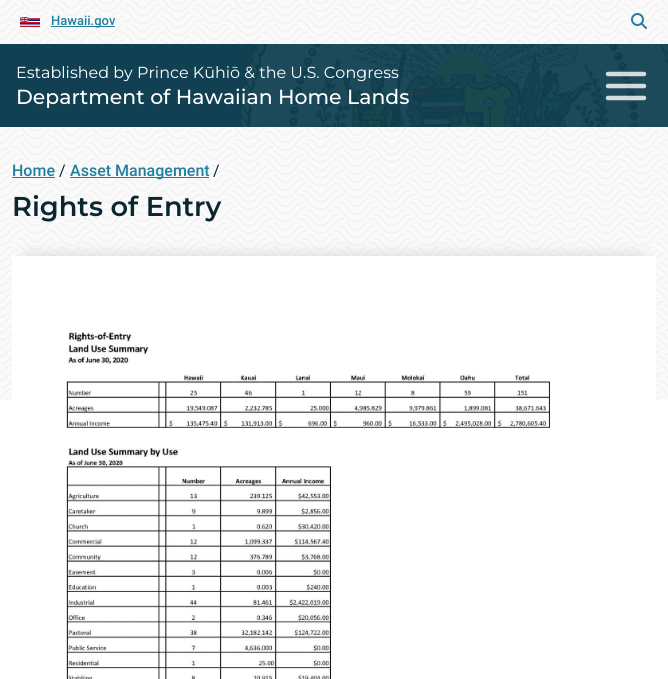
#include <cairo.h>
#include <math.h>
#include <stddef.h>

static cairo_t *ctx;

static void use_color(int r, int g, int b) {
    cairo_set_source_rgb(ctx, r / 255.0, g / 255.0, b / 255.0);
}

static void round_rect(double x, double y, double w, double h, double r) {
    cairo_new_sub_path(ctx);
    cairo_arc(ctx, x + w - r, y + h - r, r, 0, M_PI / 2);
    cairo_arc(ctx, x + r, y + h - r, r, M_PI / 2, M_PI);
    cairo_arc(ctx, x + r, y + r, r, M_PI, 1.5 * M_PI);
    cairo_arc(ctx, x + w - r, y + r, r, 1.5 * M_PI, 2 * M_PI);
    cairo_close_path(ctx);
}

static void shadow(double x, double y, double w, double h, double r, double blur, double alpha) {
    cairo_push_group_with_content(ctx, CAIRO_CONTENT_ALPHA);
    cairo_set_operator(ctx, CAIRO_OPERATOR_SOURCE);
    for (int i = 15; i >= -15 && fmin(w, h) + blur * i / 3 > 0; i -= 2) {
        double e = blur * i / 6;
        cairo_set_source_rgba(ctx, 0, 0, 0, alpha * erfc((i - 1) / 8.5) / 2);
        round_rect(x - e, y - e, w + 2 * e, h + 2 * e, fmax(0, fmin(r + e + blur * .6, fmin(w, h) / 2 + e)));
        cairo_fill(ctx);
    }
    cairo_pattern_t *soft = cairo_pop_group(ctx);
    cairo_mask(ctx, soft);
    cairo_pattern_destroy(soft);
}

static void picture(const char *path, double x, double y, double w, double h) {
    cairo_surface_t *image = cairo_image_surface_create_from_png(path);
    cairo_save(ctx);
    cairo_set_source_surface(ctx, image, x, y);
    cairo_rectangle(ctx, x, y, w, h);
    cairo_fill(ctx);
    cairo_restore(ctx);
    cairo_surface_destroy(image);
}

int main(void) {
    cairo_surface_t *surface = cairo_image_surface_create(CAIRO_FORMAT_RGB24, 668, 679);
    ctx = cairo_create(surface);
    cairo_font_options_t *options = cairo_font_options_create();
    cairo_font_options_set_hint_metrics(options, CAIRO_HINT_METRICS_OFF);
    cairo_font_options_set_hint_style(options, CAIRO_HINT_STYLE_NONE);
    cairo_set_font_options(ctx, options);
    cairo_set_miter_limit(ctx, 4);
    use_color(255, 255, 255);
    cairo_paint(ctx);
    picture("img1.png", 0, 0, 668, 44);
    picture("img2.png", 20, 17, 20, 10);
    use_color(33, 128, 160);
    cairo_rectangle(ctx, 51, 26, 64, 1);
    cairo_fill(ctx);
    cairo_select_font_face(ctx, "Roboto Medium", CAIRO_FONT_SLANT_NORMAL, CAIRO_FONT_WEIGHT_NORMAL);
    cairo_set_font_size(ctx, 13);
    cairo_move_to(ctx, 51, 25);
    cairo_show_text(ctx, "Hawaii.gov");
    picture("img3.png", 631, 13, 16, 16);
    use_color(16, 64, 81);
    cairo_rectangle(ctx, 0, 44, 668, 83);
    cairo_fill(ctx);
    picture("img4.png", 240, 44, 428, 83);
    cairo_select_font_face(ctx, "Montserrat", CAIRO_FONT_SLANT_NORMAL, CAIRO_FONT_WEIGHT_NORMAL);
    cairo_set_font_size(ctx, 16);
    use_color(255, 255, 255);
    cairo_move_to(ctx, 16, 78);
    cairo_show_text(ctx, "Established by Prince Kūhiō & the U.S. Congress");
    cairo_select_font_face(ctx, "Montserrat Medium", CAIRO_FONT_SLANT_NORMAL, CAIRO_FONT_WEIGHT_NORMAL);
    cairo_set_font_size(ctx, 20.4);
    cairo_move_to(ctx, 16, 104);
    cairo_show_text(ctx, "Department of Hawaiian Home Lands");
    cairo_new_path(ctx);
    cairo_move_to(ctx, 608, 74);
    cairo_line_to(ctx, 644, 74);
    cairo_move_to(ctx, 608, 86);
    cairo_line_to(ctx, 644, 86);
    cairo_move_to(ctx, 608, 98);
    cairo_line_to(ctx, 644, 98);
    cairo_set_source_rgba(ctx, 1, 1, 1, 0.8);
    cairo_set_line_width(ctx, 4.5);
    cairo_set_line_cap(ctx, CAIRO_LINE_CAP_ROUND);
    cairo_stroke(ctx);
    picture("img5.png", 0, 127, 668, 273);
    cairo_select_font_face(ctx, "Roboto Medium", CAIRO_FONT_SLANT_NORMAL, CAIRO_FONT_WEIGHT_NORMAL);
    cairo_set_font_size(ctx, 16);
    use_color(33, 128, 160);
    cairo_move_to(ctx, 12, 176);
    cairo_show_text(ctx, "Home");
    cairo_rectangle(ctx, 12, 177, 43, 1);
    cairo_fill(ctx);
    cairo_select_font_face(ctx, "Roboto", CAIRO_FONT_SLANT_NORMAL, CAIRO_FONT_WEIGHT_NORMAL);
    use_color(10, 38, 49);
    cairo_move_to(ctx, 59, 176);
    cairo_show_text(ctx, "/");
    use_color(33, 128, 160);
    cairo_rectangle(ctx, 70, 177, 139, 1);
    cairo_fill(ctx);
    cairo_select_font_face(ctx, "Roboto Medium", CAIRO_FONT_SLANT_NORMAL, CAIRO_FONT_WEIGHT_NORMAL);
    cairo_move_to(ctx, 70, 176);
    cairo_show_text(ctx, "Asset Management");
    cairo_select_font_face(ctx, "Roboto", CAIRO_FONT_SLANT_NORMAL, CAIRO_FONT_WEIGHT_NORMAL);
    use_color(10, 38, 49);
    cairo_move_to(ctx, 213, 176);
    cairo_show_text(ctx, "/");
    cairo_select_font_face(ctx, "Montserrat SemiBold", CAIRO_FONT_SLANT_NORMAL, CAIRO_FONT_WEIGHT_NORMAL);
    cairo_set_font_size(ctx, 27.25);
    cairo_move_to(ctx, 12, 216);
    cairo_show_text(ctx, "Rights of Entry");
    use_color(213, 213, 213);
    shadow(27, 256, 614, 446, 0, 7.5, 1);
    use_color(255, 255, 255);
    cairo_rectangle(ctx, 12, 256, 644, 423);
    cairo_fill(ctx);
    picture("img6.png", 66, 332, 485, 347);
    cairo_surface_write_to_png(surface, "result.png");
    cairo_font_options_destroy(options);
    cairo_destroy(ctx);
    cairo_surface_destroy(surface);
    return 0;
}
